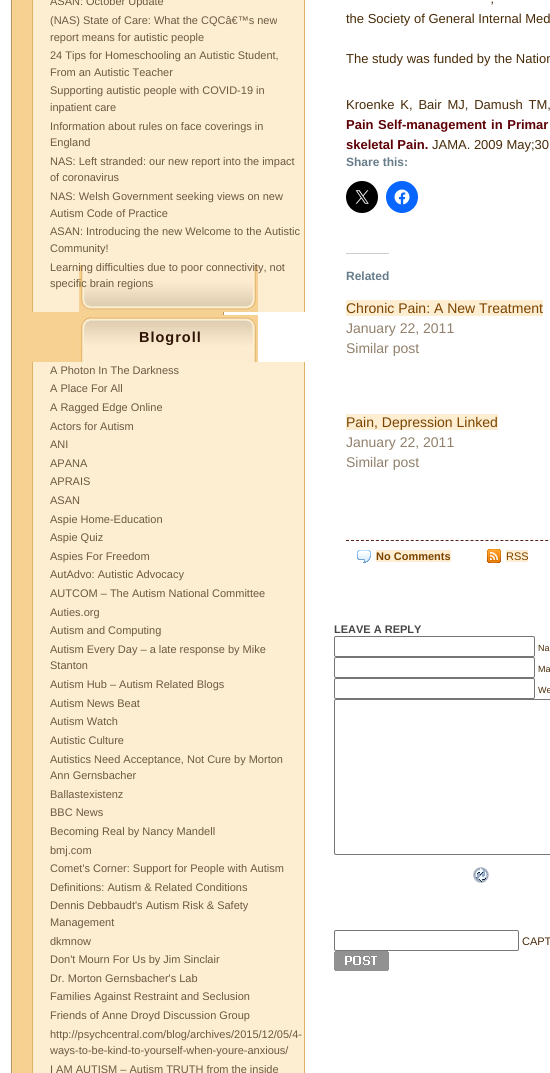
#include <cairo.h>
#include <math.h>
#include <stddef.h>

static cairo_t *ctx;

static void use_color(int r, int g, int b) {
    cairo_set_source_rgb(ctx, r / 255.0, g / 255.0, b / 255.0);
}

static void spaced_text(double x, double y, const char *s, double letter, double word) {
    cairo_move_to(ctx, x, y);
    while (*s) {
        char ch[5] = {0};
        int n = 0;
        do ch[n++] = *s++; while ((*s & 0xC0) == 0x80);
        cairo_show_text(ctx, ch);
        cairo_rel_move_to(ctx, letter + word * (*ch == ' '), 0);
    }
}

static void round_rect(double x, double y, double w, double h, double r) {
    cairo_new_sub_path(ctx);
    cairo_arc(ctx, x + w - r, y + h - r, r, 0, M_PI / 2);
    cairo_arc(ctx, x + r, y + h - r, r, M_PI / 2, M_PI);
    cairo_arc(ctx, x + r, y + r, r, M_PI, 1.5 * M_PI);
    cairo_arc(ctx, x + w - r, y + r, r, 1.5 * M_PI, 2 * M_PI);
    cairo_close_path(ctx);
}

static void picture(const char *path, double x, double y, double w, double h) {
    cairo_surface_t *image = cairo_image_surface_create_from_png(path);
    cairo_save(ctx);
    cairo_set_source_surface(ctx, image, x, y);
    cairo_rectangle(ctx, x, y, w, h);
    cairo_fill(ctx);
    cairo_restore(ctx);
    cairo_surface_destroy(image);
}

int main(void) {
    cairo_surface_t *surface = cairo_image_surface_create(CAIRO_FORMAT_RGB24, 550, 1073);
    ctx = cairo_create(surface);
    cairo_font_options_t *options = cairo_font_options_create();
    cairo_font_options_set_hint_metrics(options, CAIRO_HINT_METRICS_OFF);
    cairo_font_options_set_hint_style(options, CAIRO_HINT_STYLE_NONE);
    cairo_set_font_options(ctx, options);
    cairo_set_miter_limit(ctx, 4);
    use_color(255, 255, 255);
    cairo_paint(ctx);
    picture("img1.png", 9, 0, 215, 1073);
    use_color(253, 237, 209);
    cairo_rectangle(ctx, 33, 0, 271, 312);
    cairo_fill(ctx);
    picture("img2.png", 79, 265, 179, 47);
    use_color(222, 179, 104);
    cairo_rectangle(ctx, 304, 0, 1, 312);
    cairo_fill(ctx);
    cairo_rectangle(ctx, 32, 0, 1, 312);
    cairo_fill(ctx);
    cairo_select_font_face(ctx, "Liberation Sans", CAIRO_FONT_SLANT_NORMAL, CAIRO_FONT_WEIGHT_NORMAL);
    cairo_set_font_size(ctx, 11);
    use_color(109, 89, 65);
    cairo_move_to(ctx, 50, 5);
    cairo_show_text(ctx, "ASAN: October Update");
    cairo_move_to(ctx, 50, 24);
    cairo_show_text(ctx, "(NAS) State of Care: What the CQCâ€™s new");
    cairo_move_to(ctx, 50, 41);
    cairo_show_text(ctx, "report means for autistic people");
    cairo_move_to(ctx, 50, 59);
    cairo_show_text(ctx, "24 Tips for Homeschooling an Autistic Student,");
    cairo_move_to(ctx, 50, 76);
    cairo_show_text(ctx, "From an Autistic Teacher");
    cairo_move_to(ctx, 50, 94);
    cairo_show_text(ctx, "Supporting autistic people with COVID-19 in");
    cairo_move_to(ctx, 50, 111);
    cairo_show_text(ctx, "inpatient care");
    cairo_move_to(ctx, 50, 130);
    cairo_show_text(ctx, "Information about rules on face coverings in");
    cairo_move_to(ctx, 50, 146);
    cairo_show_text(ctx, "England");
    cairo_move_to(ctx, 50, 165);
    cairo_show_text(ctx, "NAS: Left stranded: our new report into the impact");
    cairo_move_to(ctx, 50, 181);
    cairo_show_text(ctx, "of coronavirus");
    cairo_move_to(ctx, 50, 200);
    cairo_show_text(ctx, "NAS: Welsh Government seeking views on new");
    cairo_move_to(ctx, 50, 217);
    cairo_show_text(ctx, "Autism Code of Practice");
    cairo_move_to(ctx, 50, 235);
    cairo_show_text(ctx, "ASAN: Introducing the new Welcome to the Autistic");
    cairo_move_to(ctx, 50, 252);
    cairo_show_text(ctx, "Community!");
    cairo_move_to(ctx, 50, 271);
    cairo_show_text(ctx, "Learning difficulties due to poor connectivity, not");
    cairo_move_to(ctx, 50, 287);
    cairo_show_text(ctx, "specific brain regions");
    picture("img3.png", 79, 315, 179, 47);
    cairo_select_font_face(ctx, "Liberation Sans", CAIRO_FONT_SLANT_NORMAL, CAIRO_FONT_WEIGHT_BOLD);
    cairo_set_font_size(ctx, 14.5);
    use_color(47, 19, 5);
    spaced_text(139, 342, "Blogroll", 1, 0);
    use_color(253, 237, 209);
    cairo_rectangle(ctx, 33, 362, 271, 711);
    cairo_fill(ctx);
    use_color(222, 179, 104);
    cairo_rectangle(ctx, 304, 362, 1, 711);
    cairo_fill(ctx);
    cairo_rectangle(ctx, 32, 362, 1, 711);
    cairo_fill(ctx);
    cairo_select_font_face(ctx, "Liberation Sans", CAIRO_FONT_SLANT_NORMAL, CAIRO_FONT_WEIGHT_NORMAL);
    cairo_set_font_size(ctx, 11);
    use_color(109, 89, 65);
    cairo_move_to(ctx, 50, 374);
    cairo_show_text(ctx, "A Photon In The Darkness");
    cairo_move_to(ctx, 50, 392);
    cairo_show_text(ctx, "A Place For All");
    cairo_move_to(ctx, 50, 411);
    cairo_show_text(ctx, "A Ragged Edge Online");
    cairo_move_to(ctx, 50, 430);
    cairo_show_text(ctx, "Actors for Autism");
    cairo_move_to(ctx, 50, 448);
    cairo_show_text(ctx, "ANI");
    cairo_move_to(ctx, 50, 467);
    cairo_show_text(ctx, "APANA");
    cairo_move_to(ctx, 50, 485);
    cairo_show_text(ctx, "APRAIS");
    cairo_move_to(ctx, 50, 504);
    cairo_show_text(ctx, "ASAN");
    cairo_move_to(ctx, 50, 523);
    cairo_show_text(ctx, "Aspie Home-Education");
    cairo_move_to(ctx, 50, 541);
    cairo_show_text(ctx, "Aspie Quiz");
    cairo_move_to(ctx, 50, 560);
    cairo_show_text(ctx, "Aspies For Freedom");
    cairo_move_to(ctx, 50, 578);
    cairo_show_text(ctx, "AutAdvo: Autistic Advocacy");
    cairo_move_to(ctx, 50, 597);
    cairo_show_text(ctx, "AUTCOM – The Autism National Committee");
    cairo_move_to(ctx, 50, 616);
    cairo_show_text(ctx, "Auties.org");
    cairo_move_to(ctx, 50, 634);
    cairo_show_text(ctx, "Autism and Computing");
    cairo_move_to(ctx, 50, 653);
    cairo_show_text(ctx, "Autism Every Day – a late response by Mike");
    cairo_move_to(ctx, 50, 669);
    cairo_show_text(ctx, "Stanton");
    cairo_move_to(ctx, 50, 688);
    cairo_show_text(ctx, "Autism Hub – Autism Related Blogs");
    cairo_move_to(ctx, 50, 707);
    cairo_show_text(ctx, "Autism News Beat");
    cairo_move_to(ctx, 50, 725);
    cairo_show_text(ctx, "Autism Watch");
    cairo_move_to(ctx, 50, 744);
    cairo_show_text(ctx, "Autistic Culture");
    cairo_move_to(ctx, 50, 763);
    cairo_show_text(ctx, "Autistics Need Acceptance, Not Cure by Morton");
    cairo_move_to(ctx, 50, 779);
    cairo_show_text(ctx, "Ann Gernsbacher");
    cairo_move_to(ctx, 50, 798);
    cairo_show_text(ctx, "Ballastexistenz");
    cairo_move_to(ctx, 50, 816);
    cairo_show_text(ctx, "BBC News");
    cairo_move_to(ctx, 50, 835);
    cairo_show_text(ctx, "Becoming Real by Nancy Mandell");
    cairo_move_to(ctx, 50, 854);
    cairo_show_text(ctx, "bmj.com");
    cairo_move_to(ctx, 50, 872);
    cairo_show_text(ctx, "Comet's Corner: Support for People with Autism");
    cairo_move_to(ctx, 50, 891);
    cairo_show_text(ctx, "Definitions: Autism & Related Conditions");
    cairo_move_to(ctx, 50, 909);
    cairo_show_text(ctx, "Dennis Debbaudt's Autism Risk & Safety");
    cairo_move_to(ctx, 50, 926);
    cairo_show_text(ctx, "Management");
    cairo_move_to(ctx, 50, 945);
    cairo_show_text(ctx, "dkmnow");
    cairo_move_to(ctx, 50, 963);
    cairo_show_text(ctx, "Don't Mourn For Us by Jim Sinclair");
    cairo_move_to(ctx, 50, 982);
    cairo_show_text(ctx, "Dr. Morton Gernsbacher's Lab");
    cairo_move_to(ctx, 50, 1000);
    cairo_show_text(ctx, "Families Against Restraint and Seclusion");
    cairo_move_to(ctx, 50, 1019);
    cairo_show_text(ctx, "Friends of Anne Droyd Discussion Group");
    cairo_move_to(ctx, 50, 1038);
    cairo_show_text(ctx, "http://psychcentral.com/blog/archives/2015/12/05/4-");
    cairo_move_to(ctx, 50, 1054);
    cairo_show_text(ctx, "ways-to-be-kind-to-yourself-when-youre-anxious/");
    cairo_move_to(ctx, 50, 1073);
    cairo_show_text(ctx, "I AM AUTISM – Autism TRUTH from the inside");
    cairo_select_font_face(ctx, "Liberation Sans", CAIRO_FONT_SLANT_ITALIC, CAIRO_FONT_WEIGHT_NORMAL);
    cairo_set_font_size(ctx, 13);
    use_color(72, 43, 8);
    spaced_text(491, 3, ",", 0, 1);
    cairo_select_font_face(ctx, "Liberation Sans", CAIRO_FONT_SLANT_NORMAL, CAIRO_FONT_WEIGHT_NORMAL);
    cairo_move_to(ctx, 346, 23);
    cairo_show_text(ctx, "the Society of General Internal Med");
    cairo_move_to(ctx, 346, 63);
    cairo_show_text(ctx, "The study was funded by the Nation");
    spaced_text(346, 109, "Kroenke K, Bair MJ, Damush TM,", 0, 2.25);
    cairo_select_font_face(ctx, "Liberation Sans", CAIRO_FONT_SLANT_NORMAL, CAIRO_FONT_WEIGHT_BOLD);
    use_color(92, 0, 5);
    spaced_text(346, 129, "Pain Self-management in Primar", 0, 1);
    cairo_move_to(ctx, 346, 149);
    cairo_show_text(ctx, "skeletal Pain.");
    cairo_select_font_face(ctx, "Liberation Sans", CAIRO_FONT_SLANT_NORMAL, CAIRO_FONT_WEIGHT_NORMAL);
    use_color(72, 43, 8);
    cairo_move_to(ctx, 432, 149);
    cairo_show_text(ctx, "JAMA. 2009 May;30");
    cairo_select_font_face(ctx, "Liberation Sans", CAIRO_FONT_SLANT_NORMAL, CAIRO_FONT_WEIGHT_BOLD);
    cairo_set_font_size(ctx, 12);
    use_color(102, 124, 138);
    cairo_move_to(ctx, 346, 166);
    cairo_show_text(ctx, "Share this:");
    use_color(0, 0, 0);
    cairo_new_path(ctx);
    cairo_arc(ctx, 362, 197, 16, 0, 2 * M_PI);
    cairo_fill(ctx);
    picture("img4.png", 355, 190, 14, 14);
    use_color(8, 102, 255);
    cairo_arc(ctx, 402, 197, 16, 0, 2 * M_PI);
    cairo_fill(ctx);
    picture("img5.png", 394, 189, 16, 16);
    use_color(204, 204, 204);
    cairo_rectangle(ctx, 346, 253, 43, 1);
    cairo_fill(ctx);
    use_color(102, 124, 138);
    cairo_move_to(ctx, 346, 280);
    cairo_show_text(ctx, "Related");
    use_color(253, 237, 209);
    cairo_rectangle(ctx, 346, 300, 197, 16);
    cairo_fill(ctx);
    cairo_select_font_face(ctx, "Liberation Sans", CAIRO_FONT_SLANT_NORMAL, CAIRO_FONT_WEIGHT_NORMAL);
    cairo_set_font_size(ctx, 14);
    use_color(123, 67, 0);
    cairo_move_to(ctx, 346, 313);
    cairo_show_text(ctx, "Chronic Pain: A New Treatment");
    use_color(145, 128, 107);
    cairo_move_to(ctx, 346, 333);
    cairo_show_text(ctx, "January 22, 2011");
    cairo_move_to(ctx, 346, 353);
    cairo_show_text(ctx, "Similar post");
    use_color(253, 237, 209);
    cairo_rectangle(ctx, 346, 414, 152, 16);
    cairo_fill(ctx);
    use_color(123, 67, 0);
    cairo_move_to(ctx, 346, 427);
    cairo_show_text(ctx, "Pain, Depression Linked");
    use_color(145, 128, 107);
    cairo_move_to(ctx, 346, 447);
    cairo_show_text(ctx, "January 22, 2011");
    cairo_move_to(ctx, 346, 467);
    cairo_show_text(ctx, "Similar post");
    cairo_new_path(ctx);
    cairo_move_to(ctx, 346, 540.5);
    cairo_line_to(ctx, 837, 540.5);
    use_color(86, 34, 23);
    cairo_set_line_width(ctx, 1);
    cairo_set_dash(ctx, (double[]){3, 1.98}, 2, 0);
    cairo_stroke(ctx);
    picture("img6.png", 357, 550, 14, 13);
    use_color(253, 237, 209);
    cairo_rectangle(ctx, 376, 550, 75, 12);
    cairo_fill(ctx);
    cairo_select_font_face(ctx, "Liberation Sans", CAIRO_FONT_SLANT_NORMAL, CAIRO_FONT_WEIGHT_BOLD);
    cairo_set_font_size(ctx, 11);
    use_color(123, 67, 0);
    cairo_move_to(ctx, 376, 560);
    cairo_show_text(ctx, "No Comments");
    picture("img7.png", 487, 549, 14, 14);
    use_color(253, 237, 209);
    cairo_rectangle(ctx, 506, 550, 22, 12);
    cairo_fill(ctx);
    cairo_select_font_face(ctx, "Liberation Sans", CAIRO_FONT_SLANT_NORMAL, CAIRO_FONT_WEIGHT_NORMAL);
    use_color(123, 67, 0);
    cairo_move_to(ctx, 506, 560);
    cairo_show_text(ctx, "RSS");
    cairo_select_font_face(ctx, "Liberation Sans", CAIRO_FONT_SLANT_NORMAL, CAIRO_FONT_WEIGHT_BOLD);
    use_color(70, 70, 70);
    cairo_move_to(ctx, 334, 633);
    cairo_show_text(ctx, "LEAVE A REPLY");
    round_rect(334.5, 636.5, 200, 20, 1.5);
    use_color(118, 118, 118);
    cairo_set_dash(ctx, NULL, 0, 0);
    cairo_stroke(ctx);
    cairo_select_font_face(ctx, "Liberation Sans", CAIRO_FONT_SLANT_NORMAL, CAIRO_FONT_WEIGHT_NORMAL);
    cairo_set_font_size(ctx, 9);
    use_color(72, 43, 8);
    cairo_move_to(ctx, 538, 651);
    cairo_show_text(ctx, "Na");
    round_rect(334.5, 657.5, 200, 20, 1.5);
    use_color(118, 118, 118);
    cairo_stroke(ctx);
    use_color(72, 43, 8);
    cairo_move_to(ctx, 538, 672);
    cairo_show_text(ctx, "Ma");
    round_rect(334.5, 678.5, 200, 20, 1.5);
    use_color(118, 118, 118);
    cairo_stroke(ctx);
    use_color(72, 43, 8);
    cairo_move_to(ctx, 538, 693);
    cairo_show_text(ctx, "We");
    round_rect(334.5, 699.5, 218, 155, 1.5);
    use_color(118, 118, 118);
    cairo_stroke(ctx);
    picture("img8.png", 473, 867, 16, 16);
    round_rect(334.5, 930.5, 184, 20, 1.5);
    cairo_stroke(ctx);
    cairo_set_font_size(ctx, 11);
    use_color(72, 43, 8);
    cairo_move_to(ctx, 522, 945);
    cairo_show_text(ctx, "CAPT");
    picture("img9.png", 334, 951, 55, 20);
    cairo_surface_write_to_png(surface, "result.png");
    cairo_font_options_destroy(options);
    cairo_destroy(ctx);
    cairo_surface_destroy(surface);
    return 0;
}
